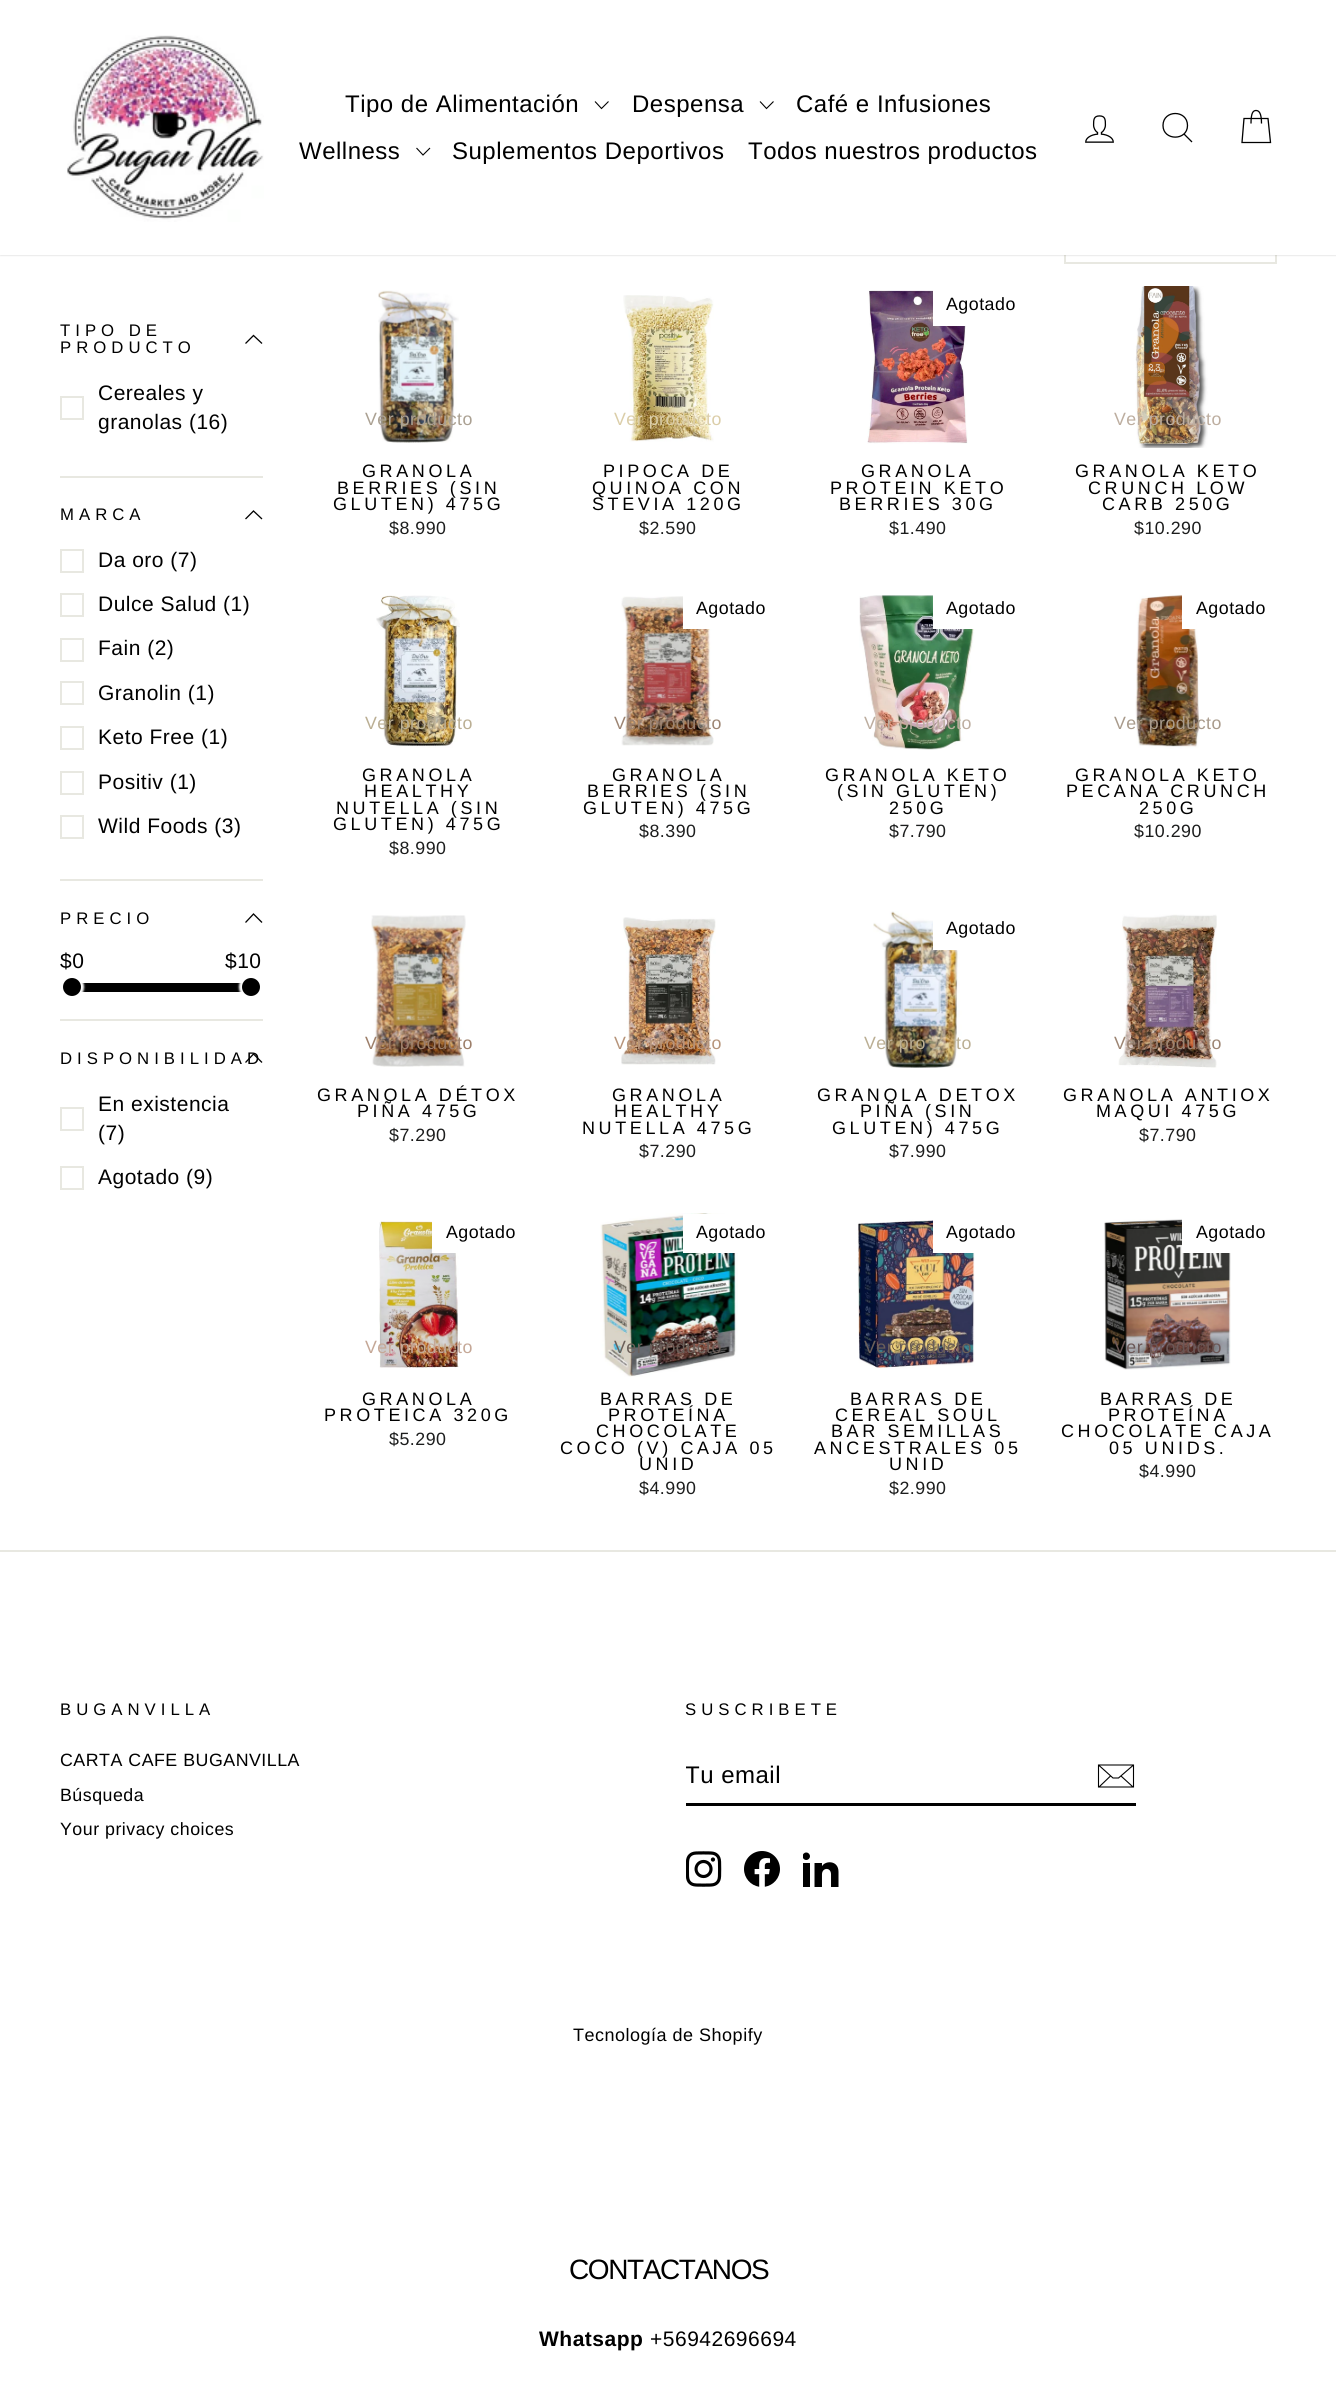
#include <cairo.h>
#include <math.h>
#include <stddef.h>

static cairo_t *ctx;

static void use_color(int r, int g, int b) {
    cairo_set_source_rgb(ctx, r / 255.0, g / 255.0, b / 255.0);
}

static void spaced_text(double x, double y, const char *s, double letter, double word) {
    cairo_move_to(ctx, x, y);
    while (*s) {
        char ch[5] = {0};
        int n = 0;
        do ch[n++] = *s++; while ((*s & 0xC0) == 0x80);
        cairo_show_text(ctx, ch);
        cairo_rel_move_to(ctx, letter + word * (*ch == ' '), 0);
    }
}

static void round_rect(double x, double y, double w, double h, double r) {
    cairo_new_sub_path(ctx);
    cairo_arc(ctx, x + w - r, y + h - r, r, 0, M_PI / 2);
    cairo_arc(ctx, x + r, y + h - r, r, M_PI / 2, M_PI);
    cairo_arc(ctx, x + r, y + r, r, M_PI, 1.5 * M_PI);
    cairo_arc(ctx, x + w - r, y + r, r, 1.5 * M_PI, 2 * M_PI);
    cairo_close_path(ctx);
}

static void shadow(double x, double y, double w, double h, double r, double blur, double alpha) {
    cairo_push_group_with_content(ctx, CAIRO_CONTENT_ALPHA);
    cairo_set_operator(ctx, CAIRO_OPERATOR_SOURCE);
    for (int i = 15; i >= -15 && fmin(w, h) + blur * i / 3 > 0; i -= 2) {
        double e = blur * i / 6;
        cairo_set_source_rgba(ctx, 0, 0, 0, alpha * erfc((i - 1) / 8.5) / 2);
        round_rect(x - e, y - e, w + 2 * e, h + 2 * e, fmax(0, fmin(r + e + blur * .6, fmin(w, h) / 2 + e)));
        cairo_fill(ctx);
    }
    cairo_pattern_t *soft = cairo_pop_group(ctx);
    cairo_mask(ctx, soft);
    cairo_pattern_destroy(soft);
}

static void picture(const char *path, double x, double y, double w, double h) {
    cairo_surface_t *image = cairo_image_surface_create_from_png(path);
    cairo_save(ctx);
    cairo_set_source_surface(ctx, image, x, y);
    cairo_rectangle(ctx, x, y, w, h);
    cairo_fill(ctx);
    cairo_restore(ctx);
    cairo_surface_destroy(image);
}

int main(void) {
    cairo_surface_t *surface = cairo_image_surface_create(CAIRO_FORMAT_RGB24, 1336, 2382);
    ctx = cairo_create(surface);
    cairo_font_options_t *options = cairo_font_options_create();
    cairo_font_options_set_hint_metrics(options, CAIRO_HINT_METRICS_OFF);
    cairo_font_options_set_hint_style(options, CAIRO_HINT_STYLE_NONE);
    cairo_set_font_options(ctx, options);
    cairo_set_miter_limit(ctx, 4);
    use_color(255, 255, 255);
    cairo_paint(ctx);
    cairo_rectangle(ctx, 1065, 199, 211, 64);
    use_color(232, 232, 225);
    cairo_stroke(ctx);
    use_color(0, 0, 0);
    shadow(0, 0, 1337, 255, 0, 1, 0.2);
    use_color(255, 255, 255);
    cairo_rectangle(ctx, 0, 0, 1336, 255);
    cairo_fill(ctx);
    picture("img1.png", 67, 35, 197, 187);
    cairo_select_font_face(ctx, "Liberation Sans", CAIRO_FONT_SLANT_NORMAL, CAIRO_FONT_WEIGHT_NORMAL);
    cairo_set_font_size(ctx, 24);
    use_color(0, 0, 0);
    spaced_text(345, 112, "Tipo de Alimentación", 0.5, 0);
    cairo_new_path(ctx);
    cairo_move_to(ctx, 595, 101.5);
    cairo_line_to(ctx, 601.5, 108.5);
    cairo_line_to(ctx, 608.5, 101.5);
    cairo_set_line_width(ctx, 1.1);
    cairo_stroke(ctx);
    spaced_text(632, 112, "Despensa", 0.5, 0);
    cairo_new_path(ctx);
    cairo_move_to(ctx, 760, 101.5);
    cairo_line_to(ctx, 766.5, 108.5);
    cairo_line_to(ctx, 773.5, 101.5);
    cairo_stroke(ctx);
    spaced_text(796, 112, "Café e Infusiones", 0.5, 0);
    spaced_text(299, 159, "Wellness", 0.5, 0);
    cairo_new_path(ctx);
    cairo_move_to(ctx, 416.5, 148);
    cairo_line_to(ctx, 423, 155);
    cairo_line_to(ctx, 430, 148);
    cairo_stroke(ctx);
    spaced_text(452, 159, "Suplementos Deportivos", 0.5, 0);
    spaced_text(748, 159, "Todos nuestros productos", 0.5, 0);
    picture("img2.png", 1085, 115, 29, 28);
    cairo_new_path(ctx);
    cairo_move_to(ctx, 1187.5, 125.5);
    cairo_curve_to(ctx, 1187.5, 141, 1163, 141, 1163, 125.5);
    cairo_curve_to(ctx, 1163, 109.5, 1187.5, 109.5, 1187.5, 125.5);
    cairo_close_path(ctx);
    cairo_move_to(ctx, 1192, 142);
    cairo_line_to(ctx, 1184, 134);
    cairo_set_line_width(ctx, 1.3);
    cairo_stroke(ctx);
    cairo_new_path(ctx);
    cairo_move_to(ctx, 1251, 123.5);
    cairo_curve_to(ctx, 1251, 113, 1253, 110.5, 1256, 110.5);
    cairo_curve_to(ctx, 1259, 110.5, 1261.5, 113, 1261.5, 123.5);
    cairo_move_to(ctx, 1244, 118.5);
    cairo_line_to(ctx, 1268, 118.5);
    cairo_line_to(ctx, 1270.5, 142.5);
    cairo_line_to(ctx, 1242, 142.5);
    cairo_close_path(ctx);
    cairo_stroke(ctx);
    cairo_set_font_size(ctx, 16.75);
    spaced_text(60, 336, "TIPO DE", 5, 0);
    cairo_new_path(ctx);
    cairo_move_to(ctx, 245.5, 343.5);
    cairo_line_to(ctx, 253.5, 335.5);
    cairo_line_to(ctx, 262, 343.5);
    cairo_stroke(ctx);
    spaced_text(60, 353, "PRODUCTO", 5, 0);
    cairo_rectangle(ctx, 61, 397, 22, 22);
    use_color(232, 232, 225);
    cairo_set_line_width(ctx, 2);
    cairo_stroke(ctx);
    cairo_set_font_size(ctx, 21);
    use_color(0, 0, 0);
    spaced_text(98, 400, "Cereales y", 0.5, 0);
    spaced_text(98, 429, "granolas (16)", 0.5, 0);
    use_color(232, 232, 225);
    cairo_rectangle(ctx, 60, 476, 203, 2);
    cairo_fill(ctx);
    cairo_set_font_size(ctx, 16.75);
    use_color(0, 0, 0);
    spaced_text(60, 520, "MARCA", 5, 0);
    cairo_new_path(ctx);
    cairo_move_to(ctx, 245.5, 519);
    cairo_line_to(ctx, 253.5, 511);
    cairo_line_to(ctx, 262, 519);
    cairo_set_line_width(ctx, 1.3);
    cairo_stroke(ctx);
    cairo_rectangle(ctx, 61, 550, 22, 22);
    use_color(232, 232, 225);
    cairo_set_line_width(ctx, 2);
    cairo_stroke(ctx);
    cairo_set_font_size(ctx, 21);
    use_color(0, 0, 0);
    spaced_text(98, 567, "Da oro (7)", 0.5, 0);
    cairo_rectangle(ctx, 61, 594, 22, 22);
    use_color(232, 232, 225);
    cairo_stroke(ctx);
    use_color(0, 0, 0);
    spaced_text(98, 611, "Dulce Salud (1)", 0.5, 0);
    cairo_rectangle(ctx, 61, 639, 22, 22);
    use_color(232, 232, 225);
    cairo_stroke(ctx);
    use_color(0, 0, 0);
    spaced_text(98, 655, "Fain (2)", 0.5, 0);
    cairo_rectangle(ctx, 61, 682, 22, 22);
    use_color(232, 232, 225);
    cairo_stroke(ctx);
    use_color(0, 0, 0);
    spaced_text(98, 700, "Granolin (1)", 0.5, 0);
    cairo_rectangle(ctx, 61, 727, 22, 22);
    use_color(232, 232, 225);
    cairo_stroke(ctx);
    use_color(0, 0, 0);
    spaced_text(98, 744, "Keto Free (1)", 0.5, 0);
    cairo_rectangle(ctx, 61, 772, 22, 22);
    use_color(232, 232, 225);
    cairo_stroke(ctx);
    use_color(0, 0, 0);
    spaced_text(98, 789, "Positiv (1)", 0.5, 0);
    cairo_rectangle(ctx, 61, 816, 22, 22);
    use_color(232, 232, 225);
    cairo_stroke(ctx);
    use_color(0, 0, 0);
    spaced_text(98, 833, "Wild Foods (3)", 0.5, 0);
    use_color(232, 232, 225);
    cairo_rectangle(ctx, 60, 879, 203, 2);
    cairo_fill(ctx);
    cairo_set_font_size(ctx, 16.75);
    use_color(0, 0, 0);
    spaced_text(60, 924, "PRECIO", 5, 0);
    cairo_new_path(ctx);
    cairo_move_to(ctx, 245.5, 922.5);
    cairo_line_to(ctx, 253.5, 914);
    cairo_line_to(ctx, 262, 922.5);
    cairo_set_line_width(ctx, 1.3);
    cairo_stroke(ctx);
    cairo_set_font_size(ctx, 21);
    spaced_text(60, 968, "$0", 0.5, 0);
    spaced_text(225, 968, "$10", 0.5, 0);
    cairo_rectangle(ctx, 79, 983, 165, 9);
    cairo_fill(ctx);
    use_color(255, 255, 255);
    shadow(60, 975, 24, 24, 12, 1, 1);
    use_color(0, 0, 0);
    cairo_arc(ctx, 72, 987, 9, 0, 2 * M_PI);
    cairo_fill(ctx);
    use_color(255, 255, 255);
    shadow(239, 975, 24, 24, 12, 1, 1);
    use_color(0, 0, 0);
    cairo_arc(ctx, 251, 987, 9, 0, 2 * M_PI);
    cairo_fill(ctx);
    use_color(232, 232, 225);
    cairo_rectangle(ctx, 60, 1019, 203, 2);
    cairo_fill(ctx);
    cairo_set_font_size(ctx, 16.75);
    use_color(0, 0, 0);
    spaced_text(60, 1064, "DISPONIBILIDAD", 5, 0);
    cairo_new_path(ctx);
    cairo_move_to(ctx, 245.5, 1062.5);
    cairo_line_to(ctx, 253.5, 1054);
    cairo_line_to(ctx, 262, 1062.5);
    cairo_stroke(ctx);
    cairo_rectangle(ctx, 61, 1108, 22, 22);
    use_color(232, 232, 225);
    cairo_set_line_width(ctx, 2);
    cairo_stroke(ctx);
    cairo_set_font_size(ctx, 21);
    use_color(0, 0, 0);
    spaced_text(98, 1111, "En existencia", 0.5, 0);
    spaced_text(98, 1140, "(7)", 0.5, 0);
    cairo_rectangle(ctx, 61, 1167, 22, 22);
    use_color(232, 232, 225);
    cairo_stroke(ctx);
    use_color(0, 0, 0);
    spaced_text(98, 1184, "Agotado (9)", 0.5, 0);
    picture("img3.png", 378, 290, 81, 153);
    cairo_set_font_size(ctx, 17.8);
    use_color(171, 161, 147);
    spaced_text(365, 425, "Ver producto", 0.5, 0);
    cairo_set_font_size(ctx, 18);
    use_color(0, 0, 0);
    spaced_text(362, 477, "GRANOLA", 3.6, 0);
    spaced_text(337, 494, "BERRIES (SIN", 3.6, 0);
    spaced_text(333, 510, "GLUTEN) 475G", 3.6, 0);
    cairo_set_font_size(ctx, 17.8);
    use_color(28, 29, 29);
    spaced_text(389, 534, "$8.990", 0.5, 0);
    picture("img4.png", 623, 295, 91, 147);
    use_color(219, 206, 169);
    spaced_text(614, 425, "Ver producto", 0.5, 0);
    cairo_set_font_size(ctx, 18);
    use_color(0, 0, 0);
    spaced_text(603, 477, "PIPOCA DE", 3.6, 0);
    spaced_text(592, 494, "QUINOA CON", 3.6, 0);
    spaced_text(592, 510, "STEVIA 120G", 3.6, 0);
    cairo_set_font_size(ctx, 17.8);
    use_color(28, 29, 29);
    spaced_text(639, 534, "$2.590", 0.5, 0);
    picture("img5.png", 867, 290, 101, 154);
    use_color(255, 255, 255);
    cairo_rectangle(ctx, 933, 290, 35, 36);
    cairo_fill(ctx);
    use_color(0, 0, 0);
    spaced_text(946, 310, "Agotado", 0.5, 0);
    cairo_set_font_size(ctx, 18);
    spaced_text(861, 477, "GRANOLA", 3.6, 0);
    spaced_text(830, 494, "PROTEIN KETO", 3.6, 0);
    spaced_text(839, 510, "BERRIES 30G", 3.6, 0);
    cairo_set_font_size(ctx, 17.8);
    use_color(28, 29, 29);
    spaced_text(889, 534, "$1.490", 0.5, 0);
    picture("img6.png", 1135, 286, 73, 162);
    use_color(189, 174, 160);
    spaced_text(1114, 425, "Ver producto", 0.5, 0);
    cairo_set_font_size(ctx, 18);
    use_color(0, 0, 0);
    spaced_text(1075, 477, "GRANOLA KETO", 3.6, 0);
    spaced_text(1088, 494, "CRUNCH LOW", 3.6, 0);
    spaced_text(1102, 510, "CARB 250G", 3.6, 0);
    cairo_set_font_size(ctx, 17.8);
    use_color(28, 29, 29);
    spaced_text(1134, 534, "$10.290", 0.5, 0);
    picture("img7.png", 376, 595, 84, 153);
    use_color(187, 175, 148);
    spaced_text(365, 729, "Ver producto", 0.5, 0);
    cairo_set_font_size(ctx, 18);
    use_color(0, 0, 0);
    spaced_text(362, 781, "GRANOLA", 3.6, 0);
    spaced_text(364, 797, "HEALTHY", 3.6, 0);
    spaced_text(336, 814, "NUTELLA (SIN", 3.6, 0);
    spaced_text(333, 830, "GLUTEN) 475G", 3.6, 0);
    cairo_set_font_size(ctx, 17.8);
    use_color(28, 29, 29);
    spaced_text(389, 854, "$8.990", 0.5, 0);
    picture("img8.png", 621, 596, 95, 150);
    use_color(255, 255, 255);
    cairo_rectangle(ctx, 683, 596, 33, 33);
    cairo_fill(ctx);
    use_color(0, 0, 0);
    spaced_text(696, 614, "Agotado", 0.5, 0);
    use_color(157, 133, 115);
    spaced_text(614, 729, "Ver producto", 0.5, 0);
    cairo_set_font_size(ctx, 18);
    use_color(0, 0, 0);
    spaced_text(612, 781, "GRANOLA", 3.6, 0);
    spaced_text(587, 797, "BERRIES (SIN", 3.6, 0);
    spaced_text(583, 814, "GLUTEN) 475G", 3.6, 0);
    cairo_set_font_size(ctx, 17.8);
    use_color(28, 29, 29);
    spaced_text(639, 837, "$8.390", 0.5, 0);
    picture("img9.png", 859, 595, 118, 155);
    use_color(255, 255, 255);
    cairo_rectangle(ctx, 933, 595, 44, 34);
    cairo_fill(ctx);
    use_color(0, 0, 0);
    spaced_text(946, 614, "Agotado", 0.5, 0);
    use_color(189, 174, 160);
    spaced_text(864, 729, "Ver producto", 0.5, 0);
    cairo_set_font_size(ctx, 18);
    use_color(0, 0, 0);
    spaced_text(825, 781, "GRANOLA KETO", 3.6, 0);
    spaced_text(837, 797, "(SIN GLUTEN)", 3.6, 0);
    spaced_text(889, 814, "250G", 3.6, 0);
    cairo_set_font_size(ctx, 17.8);
    use_color(28, 29, 29);
    spaced_text(889, 837, "$7.790", 0.5, 0);
    picture("img10.png", 1135, 594, 65, 155);
    use_color(255, 255, 255);
    cairo_rectangle(ctx, 1182, 594, 14, 35);
    cairo_fill(ctx);
    use_color(0, 0, 0);
    spaced_text(1196, 614, "Agotado", 0.5, 0);
    use_color(169, 155, 140);
    spaced_text(1114, 729, "Ver producto", 0.5, 0);
    cairo_set_font_size(ctx, 18);
    use_color(0, 0, 0);
    spaced_text(1075, 781, "GRANOLA KETO", 3.6, 0);
    spaced_text(1066, 797, "PECANA CRUNCH", 3.6, 0);
    spaced_text(1139, 814, "250G", 3.6, 0);
    cairo_set_font_size(ctx, 17.8);
    use_color(28, 29, 29);
    spaced_text(1134, 837, "$10.290", 0.5, 0);
    picture("img11.png", 371, 915, 95, 152);
    use_color(157, 127, 106);
    spaced_text(365, 1049, "Ver producto", 0.5, 0);
    cairo_set_font_size(ctx, 18);
    use_color(0, 0, 0);
    spaced_text(317, 1101, "GRANOLA DÉTOX", 3.6, 0);
    spaced_text(357, 1117, "PIÑA 475G", 3.6, 0);
    cairo_set_font_size(ctx, 17.8);
    use_color(28, 29, 29);
    spaced_text(389, 1141, "$7.290", 0.5, 0);
    picture("img12.png", 621, 917, 95, 148);
    use_color(183, 149, 123);
    spaced_text(614, 1049, "Ver producto", 0.5, 0);
    cairo_set_font_size(ctx, 18);
    use_color(0, 0, 0);
    spaced_text(612, 1101, "GRANOLA", 3.6, 0);
    spaced_text(614, 1117, "HEALTHY", 3.6, 0);
    spaced_text(582, 1134, "NUTELLA 475G", 3.6, 0);
    cairo_set_font_size(ctx, 17.8);
    use_color(28, 29, 29);
    spaced_text(639, 1157, "$7.290", 0.5, 0);
    picture("img13.png", 873, 911, 89, 157);
    use_color(255, 255, 255);
    cairo_rectangle(ctx, 933, 920, 29, 30);
    cairo_fill(ctx);
    use_color(0, 0, 0);
    spaced_text(946, 934, "Agotado", 0.5, 0);
    use_color(187, 175, 148);
    spaced_text(864, 1049, "Ver pro", 0.5, 0);
    spaced_text(956, 1049, "to", 0.5, 0);
    cairo_set_font_size(ctx, 18);
    use_color(0, 0, 0);
    spaced_text(817, 1101, "GRANOLA DETOX", 3.6, 0);
    spaced_text(860, 1117, "PIÑA (SIN", 3.6, 0);
    spaced_text(832, 1134, "GLUTEN) 475G", 3.6, 0);
    cairo_set_font_size(ctx, 17.8);
    use_color(28, 29, 29);
    spaced_text(889, 1157, "$7.990", 0.5, 0);
    picture("img14.png", 1118, 914, 99, 154);
    use_color(157, 133, 115);
    spaced_text(1114, 1049, "Ver producto", 0.5, 0);
    cairo_set_font_size(ctx, 18);
    use_color(0, 0, 0);
    spaced_text(1063, 1101, "GRANOLA ANTIOX", 3.6, 0);
    spaced_text(1096, 1117, "MAQUI 475G", 3.6, 0);
    cairo_set_font_size(ctx, 17.8);
    use_color(28, 29, 29);
    spaced_text(1139, 1141, "$7.790", 0.5, 0);
    picture("img15.png", 379, 1221, 81, 147);
    use_color(255, 255, 255);
    cairo_rectangle(ctx, 432, 1221, 25, 32);
    cairo_fill(ctx);
    use_color(0, 0, 0);
    spaced_text(446, 1238, "Agotado", 0.5, 0);
    use_color(197, 168, 151);
    spaced_text(365, 1353, "Ver producto", 0.5, 0);
    cairo_set_font_size(ctx, 18);
    use_color(0, 0, 0);
    spaced_text(362, 1405, "GRANOLA", 3.6, 0);
    spaced_text(324, 1421, "PROTEICA 320G", 3.6, 0);
    cairo_set_font_size(ctx, 17.8);
    use_color(28, 29, 29);
    spaced_text(389, 1445, "$5.290", 0.5, 0);
    picture("img16.png", 600, 1213, 138, 164);
    use_color(255, 255, 255);
    cairo_rectangle(ctx, 683, 1214, 55, 39);
    cairo_fill(ctx);
    use_color(0, 0, 0);
    spaced_text(696, 1238, "Agotado", 0.5, 0);
    use_color(107, 95, 89);
    spaced_text(614, 1353, "Ver producto", 0.5, 0);
    cairo_set_font_size(ctx, 18);
    use_color(0, 0, 0);
    spaced_text(600, 1405, "BARRAS DE", 3.6, 0);
    spaced_text(608, 1421, "PROTEÍNA", 3.6, 0);
    spaced_text(596, 1437, "CHOCOLATE", 3.6, 0);
    spaced_text(560, 1454, "COCO (V) CAJA 05", 3.6, 0);
    spaced_text(639, 1470, "UNID", 3.6, 0);
    cairo_set_font_size(ctx, 17.8);
    use_color(28, 29, 29);
    spaced_text(639, 1494, "$4.990", 0.5, 0);
    picture("img17.png", 857, 1219, 118, 150);
    use_color(255, 255, 255);
    cairo_rectangle(ctx, 933, 1219, 42, 34);
    cairo_fill(ctx);
    use_color(0, 0, 0);
    spaced_text(946, 1238, "Agotado", 0.5, 0);
    use_color(107, 95, 89);
    spaced_text(864, 1353, "Ver producto", 0.5, 0);
    cairo_set_font_size(ctx, 18);
    use_color(0, 0, 0);
    spaced_text(850, 1405, "BARRAS DE", 3.6, 0);
    spaced_text(835, 1421, "CEREAL SOUL", 3.6, 0);
    spaced_text(831, 1437, "BAR SEMILLAS", 3.6, 0);
    spaced_text(814, 1454, "ANCESTRALES 05", 3.6, 0);
    spaced_text(889, 1470, "UNID", 3.6, 0);
    cairo_set_font_size(ctx, 17.8);
    use_color(28, 29, 29);
    spaced_text(889, 1494, "$2.990", 0.5, 0);
    picture("img18.png", 1104, 1218, 127, 152);
    use_color(255, 255, 255);
    cairo_rectangle(ctx, 1182, 1218, 49, 35);
    cairo_fill(ctx);
    use_color(0, 0, 0);
    spaced_text(1196, 1238, "Agotado", 0.5, 0);
    use_color(107, 87, 86);
    spaced_text(1114, 1353, "Ver producto", 0.5, 0);
    cairo_set_font_size(ctx, 18);
    use_color(0, 0, 0);
    spaced_text(1100, 1405, "BARRAS DE", 3.6, 0);
    spaced_text(1108, 1421, "PROTEÍNA", 3.6, 0);
    spaced_text(1061, 1437, "CHOCOLATE CAJA", 3.6, 0);
    spaced_text(1109, 1454, "05 UNIDS.", 3.6, 0);
    cairo_set_font_size(ctx, 17.8);
    use_color(28, 29, 29);
    spaced_text(1139, 1477, "$4.990", 0.5, 0);
    use_color(232, 232, 225);
    cairo_rectangle(ctx, 0, 1550, 1336, 2);
    cairo_fill(ctx);
    cairo_set_font_size(ctx, 16.75);
    use_color(0, 0, 0);
    spaced_text(60, 1715, "BUGANVILLA", 5, 0);
    cairo_set_font_size(ctx, 17.8);
    spaced_text(60, 1766, "CARTA CAFE BUGANVILLA", 0.5, 0);
    spaced_text(60, 1801, "Búsqueda", 0.5, 0);
    spaced_text(60, 1835, "Your privacy choices", 0.5, 0);
    cairo_set_font_size(ctx, 16.75);
    spaced_text(685, 1715, "SUSCRIBETE", 5, 0);
    cairo_rectangle(ctx, 686, 1803, 450, 3);
    cairo_fill(ctx);
    cairo_save(ctx);
    cairo_rectangle(ctx, 686, 1761, 382, 27);
    cairo_clip(ctx);
    cairo_set_font_size(ctx, 24);
    spaced_text(685, 1783, "Tu email", 0.5, 0);
    cairo_restore(ctx);
    cairo_new_path(ctx);
    cairo_move_to(ctx, 1133.5, 1787);
    cairo_line_to(ctx, 1098.5, 1787);
    cairo_line_to(ctx, 1098.5, 1765);
    cairo_line_to(ctx, 1133.5, 1765);
    cairo_close_path(ctx);
    cairo_move_to(ctx, 1098.5, 1765);
    cairo_line_to(ctx, 1113, 1778);
    cairo_line_to(ctx, 1118.5, 1778);
    cairo_line_to(ctx, 1133.5, 1765);
    cairo_move_to(ctx, 1110.5, 1776);
    cairo_line_to(ctx, 1099, 1787);
    cairo_move_to(ctx, 1133, 1787);
    cairo_line_to(ctx, 1121, 1776);
    cairo_set_line_width(ctx, 1.1);
    cairo_stroke(ctx);
    picture("img19.png", 686, 1851, 36, 36);
    picture("img20.png", 744, 1851, 36, 36);
    picture("img21.png", 803, 1852, 36, 35);
    cairo_set_font_size(ctx, 18);
    spaced_text(573, 2041, "Tecnología de Shopify", 0.5, 0);
    cairo_set_font_size(ctx, 28);
    spaced_text(569, 2279, "CONTACTANOS", -1.4, 0);
    cairo_select_font_face(ctx, "Liberation Sans", CAIRO_FONT_SLANT_NORMAL, CAIRO_FONT_WEIGHT_BOLD);
    cairo_set_font_size(ctx, 21);
    spaced_text(539, 2346, "Whatsapp", 0.5, 0);
    cairo_select_font_face(ctx, "Liberation Sans", CAIRO_FONT_SLANT_NORMAL, CAIRO_FONT_WEIGHT_NORMAL);
    spaced_text(650, 2346, "+56942696694", 0.5, 0);
    cairo_surface_write_to_png(surface, "result.png");
    cairo_font_options_destroy(options);
    cairo_destroy(ctx);
    cairo_surface_destroy(surface);
    return 0;
}
